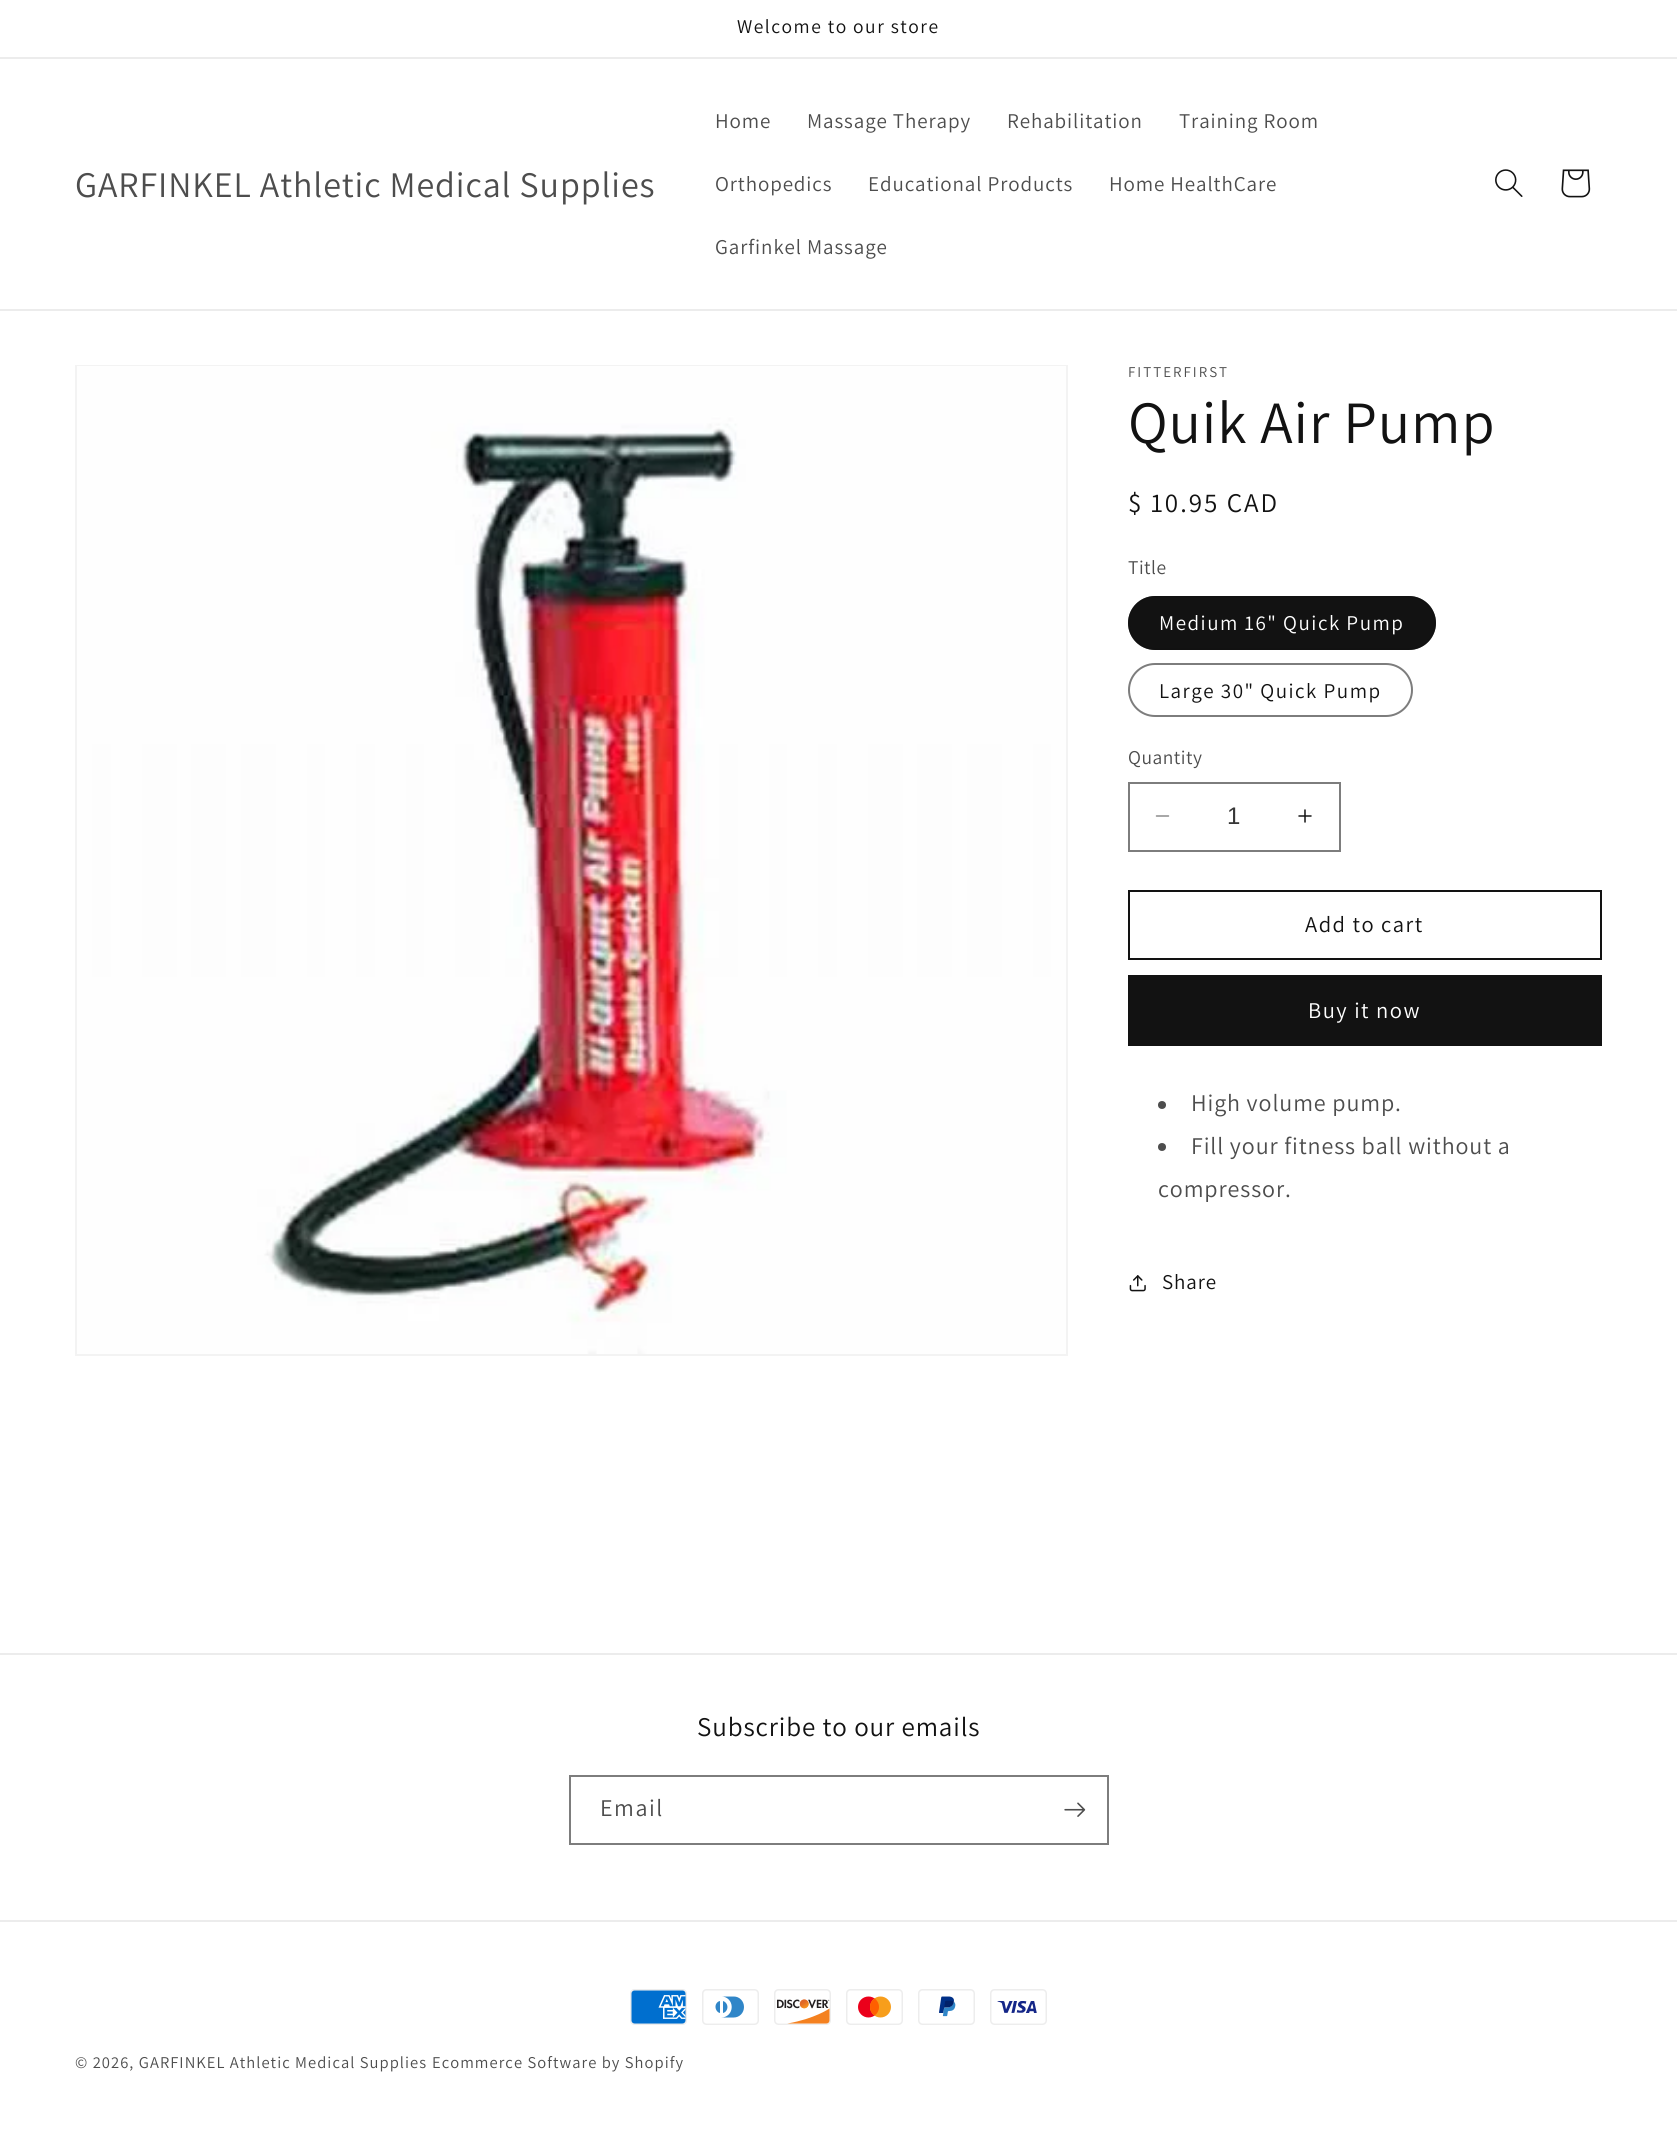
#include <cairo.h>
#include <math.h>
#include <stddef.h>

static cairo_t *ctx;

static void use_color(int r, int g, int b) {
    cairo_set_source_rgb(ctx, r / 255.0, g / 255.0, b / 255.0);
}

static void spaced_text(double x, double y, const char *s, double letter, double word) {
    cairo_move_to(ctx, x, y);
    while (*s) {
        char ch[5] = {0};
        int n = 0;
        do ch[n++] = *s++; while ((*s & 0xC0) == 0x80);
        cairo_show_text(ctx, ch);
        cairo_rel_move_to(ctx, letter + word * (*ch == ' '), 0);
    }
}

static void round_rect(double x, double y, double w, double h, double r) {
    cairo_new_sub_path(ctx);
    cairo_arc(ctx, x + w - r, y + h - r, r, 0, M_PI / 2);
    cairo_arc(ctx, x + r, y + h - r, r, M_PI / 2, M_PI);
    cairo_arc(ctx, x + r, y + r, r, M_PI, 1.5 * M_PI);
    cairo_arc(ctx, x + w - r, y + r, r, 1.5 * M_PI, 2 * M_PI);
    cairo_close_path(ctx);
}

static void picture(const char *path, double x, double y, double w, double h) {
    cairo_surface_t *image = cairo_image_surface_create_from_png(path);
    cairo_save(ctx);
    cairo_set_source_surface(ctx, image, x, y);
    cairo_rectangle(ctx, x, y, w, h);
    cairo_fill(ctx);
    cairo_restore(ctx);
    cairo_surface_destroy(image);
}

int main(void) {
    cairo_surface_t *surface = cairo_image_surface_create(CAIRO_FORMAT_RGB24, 1677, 2131);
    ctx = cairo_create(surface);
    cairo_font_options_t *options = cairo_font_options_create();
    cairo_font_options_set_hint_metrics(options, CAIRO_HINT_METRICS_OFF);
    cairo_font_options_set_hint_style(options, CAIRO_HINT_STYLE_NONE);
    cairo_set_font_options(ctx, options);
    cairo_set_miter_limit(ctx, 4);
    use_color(255, 255, 255);
    cairo_paint(ctx);
    use_color(236, 236, 236);
    cairo_rectangle(ctx, 0, 57, 1677, 2);
    cairo_fill(ctx);
    cairo_select_font_face(ctx, "Assistant", CAIRO_FONT_SLANT_NORMAL, CAIRO_FONT_WEIGHT_NORMAL);
    cairo_set_font_size(ctx, 19.5);
    use_color(18, 18, 18);
    spaced_text(737, 33, "Welcome to our store", 1.5, 0);
    use_color(236, 236, 236);
    cairo_rectangle(ctx, 0, 309, 1677, 2);
    cairo_fill(ctx);
    cairo_set_font_size(ctx, 36);
    use_color(77, 77, 77);
    spaced_text(75, 197, "GARFINKEL Athletic Medical Supplies", 0.9, 0);
    cairo_set_font_size(ctx, 21);
    spaced_text(715, 128, "Home", 0.9, 0);
    spaced_text(807, 128, "Massage Therapy", 0.9, 0);
    spaced_text(1007, 128, "Rehabilitation", 0.9, 0);
    spaced_text(1179, 128, "Training Room", 0.9, 0);
    spaced_text(715, 191, "Orthopedics", 0.9, 0);
    spaced_text(868, 191, "Educational Products", 0.9, 0);
    spaced_text(1109, 191, "Home HealthCare", 0.9, 0);
    spaced_text(715, 254, "Garfinkel Massage", 0.9, 0);
    picture("img1.png", 1495, 169, 28, 28);
    picture("img2.png", 1561, 169, 30, 29);
    cairo_rectangle(ctx, 76, 366, 991, 989);
    use_color(243, 243, 243);
    cairo_stroke(ctx);
    picture("img3.png", 77, 366, 989, 988);
    cairo_set_font_size(ctx, 15);
    use_color(77, 77, 77);
    spaced_text(1128, 377, "FITTERFIRST", 2, 0);
    cairo_set_font_size(ctx, 60);
    use_color(18, 18, 18);
    spaced_text(1128, 443, "Quik Air Pump", 0.9, 0);
    cairo_set_font_size(ctx, 27);
    spaced_text(1128, 512, "$ 10.95 CAD", 2, 0);
    cairo_set_font_size(ctx, 19.5);
    use_color(77, 77, 77);
    spaced_text(1128, 574, "Title", 0.5, 0);
    use_color(18, 18, 18);
    round_rect(1128, 596, 308, 54, 27);
    cairo_fill(ctx);
    round_rect(1129, 597, 306, 52, 26);
    cairo_set_source_rgba(ctx, 0.071, 0.071, 0.071, 0.55);
    cairo_stroke(ctx);
    cairo_set_font_size(ctx, 21);
    use_color(255, 255, 255);
    spaced_text(1159, 630, "Medium 16\" Quick Pump", 1.5, 0);
    round_rect(1129, 664, 283, 52, 26);
    use_color(125, 125, 125);
    cairo_stroke(ctx);
    use_color(18, 18, 18);
    spaced_text(1159, 698, "Large 30\" Quick Pump", 1.5, 0);
    cairo_set_font_size(ctx, 19.5);
    use_color(77, 77, 77);
    spaced_text(1128, 764, "Quantity", 0.5, 0);
    picture("img4.png", 1155, 815, 15, 2);
    picture("img5.png", 1298, 809, 14, 14);
    cairo_rectangle(ctx, 1129, 783, 211, 68);
    use_color(125, 125, 125);
    cairo_stroke(ctx);
    cairo_select_font_face(ctx, "Liberation Sans", CAIRO_FONT_SLANT_NORMAL, CAIRO_FONT_WEIGHT_NORMAL);
    cairo_set_font_size(ctx, 24);
    use_color(54, 54, 54);
    cairo_move_to(ctx, 1227, 824);
    cairo_show_text(ctx, "1");
    cairo_rectangle(ctx, 1129, 891, 472, 68);
    use_color(18, 18, 18);
    cairo_stroke(ctx);
    cairo_select_font_face(ctx, "Assistant", CAIRO_FONT_SLANT_NORMAL, CAIRO_FONT_WEIGHT_NORMAL);
    cairo_set_font_size(ctx, 22.5);
    spaced_text(1305, 932, "Add to cart", 1.5, 0);
    cairo_rectangle(ctx, 1128, 975, 474, 71);
    cairo_fill(ctx);
    use_color(255, 255, 255);
    spaced_text(1308, 1018, "Buy it now", 1.5, 0);
    use_color(77, 77, 77);
    cairo_new_path(ctx);
    cairo_arc(ctx, 1162, 1105, 4, 0, 2 * M_PI);
    cairo_fill(ctx);
    cairo_set_font_size(ctx, 24);
    spaced_text(1191, 1111, "High volume pump.", 0.9, 0);
    cairo_new_path(ctx);
    cairo_arc(ctx, 1162, 1147, 4, 0, 2 * M_PI);
    cairo_fill(ctx);
    spaced_text(1191, 1154, "Fill your fitness ball without a", 0.9, 0);
    spaced_text(1158, 1197, "compressor.", 0.9, 0);
    picture("img6.png", 1129, 1275, 17, 17);
    cairo_set_font_size(ctx, 21);
    use_color(18, 18, 18);
    spaced_text(1162, 1289, "Share", 0.9, 0);
    use_color(236, 236, 236);
    cairo_rectangle(ctx, 0, 1653, 1677, 2);
    cairo_fill(ctx);
    cairo_set_font_size(ctx, 27);
    use_color(18, 18, 18);
    spaced_text(697, 1736, "Subscribe to our emails", 0.9, 0);
    cairo_rectangle(ctx, 570, 1776, 538, 68);
    use_color(125, 125, 125);
    cairo_stroke(ctx);
    cairo_set_font_size(ctx, 24);
    use_color(77, 77, 77);
    spaced_text(600, 1816, "Email", 1.5, 0);
    picture("img7.png", 1064, 1802, 22, 15);
    use_color(236, 236, 236);
    cairo_rectangle(ctx, 0, 1920, 1677, 2);
    cairo_fill(ctx);
    picture("img8.png", 630, 1989, 57, 36);
    picture("img9.png", 702, 1989, 57, 36);
    picture("img10.png", 774, 1989, 57, 36);
    picture("img11.png", 846, 1989, 57, 36);
    picture("img12.png", 918, 1989, 57, 36);
    picture("img13.png", 990, 1989, 57, 36);
    cairo_set_font_size(ctx, 16.5);
    use_color(77, 77, 77);
    spaced_text(75, 2068, "© 2026, GARFINKEL Athletic Medical Supplies", 1.05, 0);
    spaced_text(432, 2068, "Ecommerce Software by Shopify", 1.05, 0);
    cairo_surface_write_to_png(surface, "result.png");
    cairo_font_options_destroy(options);
    cairo_destroy(ctx);
    cairo_surface_destroy(surface);
    return 0;
}
